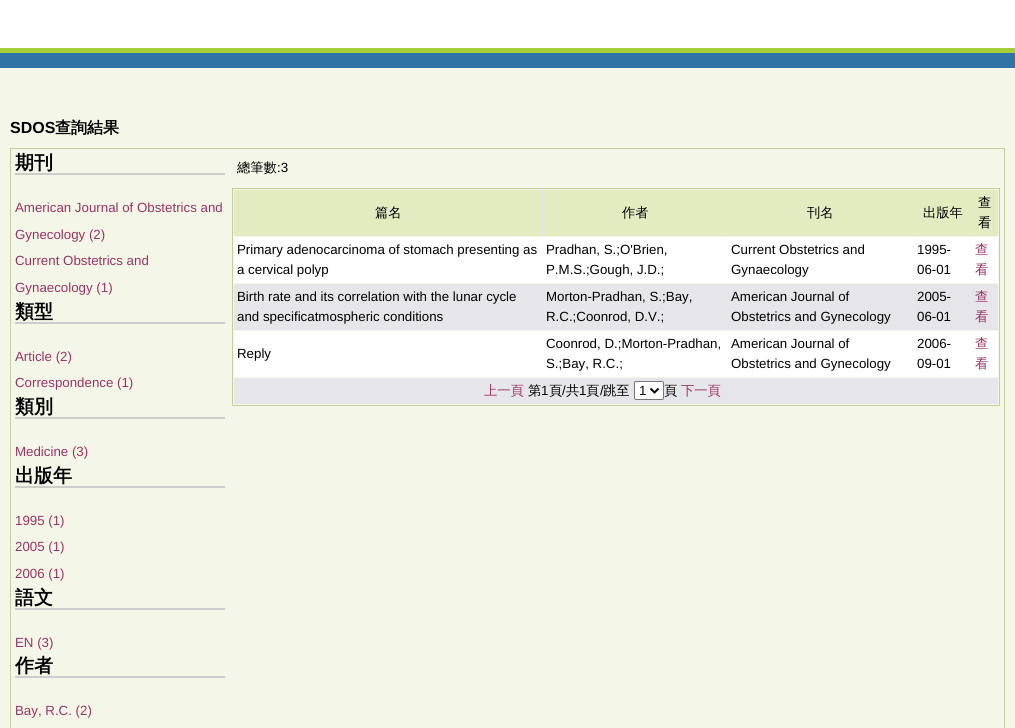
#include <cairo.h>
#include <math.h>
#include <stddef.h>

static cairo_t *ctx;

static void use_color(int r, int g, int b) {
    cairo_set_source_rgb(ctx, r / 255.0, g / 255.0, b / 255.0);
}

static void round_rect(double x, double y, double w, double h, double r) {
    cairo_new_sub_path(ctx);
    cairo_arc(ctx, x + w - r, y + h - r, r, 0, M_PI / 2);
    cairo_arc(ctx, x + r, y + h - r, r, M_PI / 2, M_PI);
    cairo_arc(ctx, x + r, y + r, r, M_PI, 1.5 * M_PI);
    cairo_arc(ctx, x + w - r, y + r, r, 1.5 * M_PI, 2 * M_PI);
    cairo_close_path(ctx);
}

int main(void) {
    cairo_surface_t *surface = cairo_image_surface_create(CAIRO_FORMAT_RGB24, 1015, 728);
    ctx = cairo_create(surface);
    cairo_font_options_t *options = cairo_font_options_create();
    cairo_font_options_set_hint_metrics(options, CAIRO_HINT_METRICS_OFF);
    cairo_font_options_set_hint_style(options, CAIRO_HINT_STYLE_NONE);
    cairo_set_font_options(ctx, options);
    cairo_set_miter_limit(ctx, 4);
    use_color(244, 247, 231);
    cairo_paint(ctx);
    use_color(255, 255, 255);
    cairo_rectangle(ctx, 0, 0, 1015, 48);
    cairo_fill(ctx);
    use_color(166, 205, 55);
    cairo_rectangle(ctx, 0, 48, 1015, 5);
    cairo_fill(ctx);
    use_color(47, 116, 164);
    cairo_rectangle(ctx, 0, 53, 1015, 15);
    cairo_fill(ctx);
    cairo_select_font_face(ctx, "Liberation Sans", CAIRO_FONT_SLANT_NORMAL, CAIRO_FONT_WEIGHT_BOLD);
    cairo_set_font_size(ctx, 16);
    use_color(0, 0, 0);
    cairo_move_to(ctx, 10, 133);
    cairo_show_text(ctx, "SDOS");
    cairo_select_font_face(ctx, "WenQuanYi Zen Hei", CAIRO_FONT_SLANT_NORMAL, CAIRO_FONT_WEIGHT_BOLD);
    cairo_move_to(ctx, 55, 133);
    cairo_show_text(ctx, "查詢結果");
    cairo_rectangle(ctx, 10.5, 148.5, 994, 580);
    use_color(197, 207, 155);
    cairo_set_line_width(ctx, 1);
    cairo_stroke(ctx);
    use_color(204, 204, 204);
    cairo_rectangle(ctx, 15, 173, 210, 2);
    cairo_fill(ctx);
    cairo_set_font_size(ctx, 19);
    use_color(0, 0, 0);
    cairo_move_to(ctx, 15, 169);
    cairo_show_text(ctx, "期刊");
    cairo_select_font_face(ctx, "Liberation Sans", CAIRO_FONT_SLANT_NORMAL, CAIRO_FONT_WEIGHT_NORMAL);
    cairo_set_font_size(ctx, 13.3);
    use_color(153, 51, 102);
    cairo_move_to(ctx, 15, 212);
    cairo_show_text(ctx, "American Journal of Obstetrics and");
    cairo_move_to(ctx, 15, 239);
    cairo_show_text(ctx, "Gynecology (2)");
    cairo_move_to(ctx, 15, 265);
    cairo_show_text(ctx, "Current Obstetrics and");
    cairo_move_to(ctx, 15, 292);
    cairo_show_text(ctx, "Gynaecology (1)");
    use_color(204, 204, 204);
    cairo_rectangle(ctx, 15, 322, 210, 2);
    cairo_fill(ctx);
    cairo_select_font_face(ctx, "WenQuanYi Zen Hei", CAIRO_FONT_SLANT_NORMAL, CAIRO_FONT_WEIGHT_BOLD);
    cairo_set_font_size(ctx, 19);
    use_color(0, 0, 0);
    cairo_move_to(ctx, 15, 318);
    cairo_show_text(ctx, "類型");
    cairo_select_font_face(ctx, "Liberation Sans", CAIRO_FONT_SLANT_NORMAL, CAIRO_FONT_WEIGHT_NORMAL);
    cairo_set_font_size(ctx, 13.3);
    use_color(153, 51, 102);
    cairo_move_to(ctx, 15, 361);
    cairo_show_text(ctx, "Article (2)");
    cairo_move_to(ctx, 15, 387);
    cairo_show_text(ctx, "Correspondence (1)");
    use_color(204, 204, 204);
    cairo_rectangle(ctx, 15, 417, 210, 2);
    cairo_fill(ctx);
    cairo_select_font_face(ctx, "WenQuanYi Zen Hei", CAIRO_FONT_SLANT_NORMAL, CAIRO_FONT_WEIGHT_BOLD);
    cairo_set_font_size(ctx, 19);
    use_color(0, 0, 0);
    cairo_move_to(ctx, 15, 413);
    cairo_show_text(ctx, "類別");
    cairo_select_font_face(ctx, "Liberation Sans", CAIRO_FONT_SLANT_NORMAL, CAIRO_FONT_WEIGHT_NORMAL);
    cairo_set_font_size(ctx, 13.3);
    use_color(153, 51, 102);
    cairo_move_to(ctx, 15, 456);
    cairo_show_text(ctx, "Medicine (3)");
    use_color(204, 204, 204);
    cairo_rectangle(ctx, 15, 486, 210, 2);
    cairo_fill(ctx);
    cairo_select_font_face(ctx, "WenQuanYi Zen Hei", CAIRO_FONT_SLANT_NORMAL, CAIRO_FONT_WEIGHT_BOLD);
    cairo_set_font_size(ctx, 19);
    use_color(0, 0, 0);
    cairo_move_to(ctx, 15, 482);
    cairo_show_text(ctx, "出版年");
    cairo_select_font_face(ctx, "Liberation Sans", CAIRO_FONT_SLANT_NORMAL, CAIRO_FONT_WEIGHT_NORMAL);
    cairo_set_font_size(ctx, 13.3);
    use_color(153, 51, 102);
    cairo_move_to(ctx, 15, 525);
    cairo_show_text(ctx, "1995 (1)");
    cairo_move_to(ctx, 15, 551);
    cairo_show_text(ctx, "2005 (1)");
    cairo_move_to(ctx, 15, 578);
    cairo_show_text(ctx, "2006 (1)");
    use_color(204, 204, 204);
    cairo_rectangle(ctx, 15, 608, 210, 2);
    cairo_fill(ctx);
    cairo_select_font_face(ctx, "WenQuanYi Zen Hei", CAIRO_FONT_SLANT_NORMAL, CAIRO_FONT_WEIGHT_BOLD);
    cairo_set_font_size(ctx, 19);
    use_color(0, 0, 0);
    cairo_move_to(ctx, 15, 604);
    cairo_show_text(ctx, "語文");
    cairo_select_font_face(ctx, "Liberation Sans", CAIRO_FONT_SLANT_NORMAL, CAIRO_FONT_WEIGHT_NORMAL);
    cairo_set_font_size(ctx, 13.3);
    use_color(153, 51, 102);
    cairo_move_to(ctx, 15, 647);
    cairo_show_text(ctx, "EN (3)");
    use_color(204, 204, 204);
    cairo_rectangle(ctx, 15, 676, 210, 2);
    cairo_fill(ctx);
    cairo_select_font_face(ctx, "WenQuanYi Zen Hei", CAIRO_FONT_SLANT_NORMAL, CAIRO_FONT_WEIGHT_BOLD);
    cairo_set_font_size(ctx, 19);
    use_color(0, 0, 0);
    cairo_move_to(ctx, 15, 672);
    cairo_show_text(ctx, "作者");
    cairo_select_font_face(ctx, "Liberation Sans", CAIRO_FONT_SLANT_NORMAL, CAIRO_FONT_WEIGHT_NORMAL);
    cairo_set_font_size(ctx, 13.3);
    use_color(153, 51, 102);
    cairo_move_to(ctx, 15, 715);
    cairo_show_text(ctx, "Bay, R.C. (2)");
    cairo_select_font_face(ctx, "WenQuanYi Zen Hei Medium", CAIRO_FONT_SLANT_NORMAL, CAIRO_FONT_WEIGHT_NORMAL);
    use_color(0, 0, 0);
    cairo_move_to(ctx, 237, 172);
    cairo_show_text(ctx, "總筆數");
    cairo_select_font_face(ctx, "Liberation Sans", CAIRO_FONT_SLANT_NORMAL, CAIRO_FONT_WEIGHT_NORMAL);
    cairo_move_to(ctx, 277, 172);
    cairo_show_text(ctx, ":3");
    cairo_rectangle(ctx, 232.5, 188.5, 767, 217);
    use_color(197, 207, 155);
    cairo_stroke(ctx);
    use_color(230, 230, 234);
    cairo_rectangle(ctx, 542, 190, 430, 46);
    cairo_fill(ctx);
    use_color(227, 236, 192);
    cairo_rectangle(ctx, 234, 190, 308, 46);
    cairo_fill(ctx);
    cairo_select_font_face(ctx, "WenQuanYi Zen Hei Medium", CAIRO_FONT_SLANT_NORMAL, CAIRO_FONT_WEIGHT_NORMAL);
    use_color(0, 0, 0);
    cairo_move_to(ctx, 375, 217);
    cairo_show_text(ctx, "篇名");
    use_color(227, 236, 192);
    cairo_rectangle(ctx, 543, 190, 184, 46);
    cairo_fill(ctx);
    use_color(0, 0, 0);
    cairo_move_to(ctx, 622, 217);
    cairo_show_text(ctx, "作者");
    use_color(227, 236, 192);
    cairo_rectangle(ctx, 728, 190, 185, 46);
    cairo_fill(ctx);
    use_color(0, 0, 0);
    cairo_move_to(ctx, 807, 217);
    cairo_show_text(ctx, "刊名");
    use_color(227, 236, 192);
    cairo_rectangle(ctx, 914, 190, 57, 46);
    cairo_fill(ctx);
    use_color(0, 0, 0);
    cairo_move_to(ctx, 923, 217);
    cairo_show_text(ctx, "出版年");
    use_color(227, 236, 192);
    cairo_rectangle(ctx, 972, 190, 26, 46);
    cairo_fill(ctx);
    use_color(0, 0, 0);
    cairo_move_to(ctx, 978, 207);
    cairo_show_text(ctx, "查");
    cairo_move_to(ctx, 978, 227);
    cairo_show_text(ctx, "看");
    use_color(255, 255, 255);
    cairo_rectangle(ctx, 234, 237, 764, 46);
    cairo_fill(ctx);
    cairo_select_font_face(ctx, "Liberation Sans", CAIRO_FONT_SLANT_NORMAL, CAIRO_FONT_WEIGHT_NORMAL);
    use_color(0, 0, 0);
    cairo_move_to(ctx, 237, 254);
    cairo_show_text(ctx, "Primary adenocarcinoma of stomach presenting as");
    cairo_move_to(ctx, 237, 274);
    cairo_show_text(ctx, "a cervical polyp");
    cairo_move_to(ctx, 546, 254);
    cairo_show_text(ctx, "Pradhan, S.;O'Brien,");
    cairo_move_to(ctx, 546, 274);
    cairo_show_text(ctx, "P.M.S.;Gough, J.D.;");
    cairo_move_to(ctx, 731, 254);
    cairo_show_text(ctx, "Current Obstetrics and");
    cairo_move_to(ctx, 731, 274);
    cairo_show_text(ctx, "Gynaecology");
    cairo_move_to(ctx, 917, 254);
    cairo_show_text(ctx, "1995-");
    cairo_move_to(ctx, 917, 274);
    cairo_show_text(ctx, "06-01");
    cairo_select_font_face(ctx, "WenQuanYi Zen Hei Medium", CAIRO_FONT_SLANT_NORMAL, CAIRO_FONT_WEIGHT_NORMAL);
    use_color(153, 51, 102);
    cairo_move_to(ctx, 975, 254);
    cairo_show_text(ctx, "查");
    cairo_move_to(ctx, 975, 274);
    cairo_show_text(ctx, "看");
    use_color(230, 230, 234);
    cairo_rectangle(ctx, 234, 284, 764, 46);
    cairo_fill(ctx);
    cairo_select_font_face(ctx, "Liberation Sans", CAIRO_FONT_SLANT_NORMAL, CAIRO_FONT_WEIGHT_NORMAL);
    use_color(0, 0, 0);
    cairo_move_to(ctx, 237, 301);
    cairo_show_text(ctx, "Birth rate and its correlation with the lunar cycle");
    cairo_move_to(ctx, 237, 321);
    cairo_show_text(ctx, "and specificatmospheric conditions");
    cairo_move_to(ctx, 546, 301);
    cairo_show_text(ctx, "Morton-Pradhan, S.;Bay,");
    cairo_move_to(ctx, 546, 321);
    cairo_show_text(ctx, "R.C.;Coonrod, D.V.;");
    cairo_move_to(ctx, 731, 301);
    cairo_show_text(ctx, "American Journal of");
    cairo_move_to(ctx, 731, 321);
    cairo_show_text(ctx, "Obstetrics and Gynecology");
    cairo_move_to(ctx, 917, 301);
    cairo_show_text(ctx, "2005-");
    cairo_move_to(ctx, 917, 321);
    cairo_show_text(ctx, "06-01");
    cairo_select_font_face(ctx, "WenQuanYi Zen Hei Medium", CAIRO_FONT_SLANT_NORMAL, CAIRO_FONT_WEIGHT_NORMAL);
    use_color(153, 51, 102);
    cairo_move_to(ctx, 975, 301);
    cairo_show_text(ctx, "查");
    cairo_move_to(ctx, 975, 321);
    cairo_show_text(ctx, "看");
    use_color(255, 255, 255);
    cairo_rectangle(ctx, 234, 331, 764, 46);
    cairo_fill(ctx);
    cairo_select_font_face(ctx, "Liberation Sans", CAIRO_FONT_SLANT_NORMAL, CAIRO_FONT_WEIGHT_NORMAL);
    use_color(0, 0, 0);
    cairo_move_to(ctx, 237, 358);
    cairo_show_text(ctx, "Reply");
    cairo_move_to(ctx, 546, 348);
    cairo_show_text(ctx, "Coonrod, D.;Morton-Pradhan,");
    cairo_move_to(ctx, 546, 368);
    cairo_show_text(ctx, "S.;Bay, R.C.;");
    cairo_move_to(ctx, 731, 348);
    cairo_show_text(ctx, "American Journal of");
    cairo_move_to(ctx, 731, 368);
    cairo_show_text(ctx, "Obstetrics and Gynecology");
    cairo_move_to(ctx, 917, 348);
    cairo_show_text(ctx, "2006-");
    cairo_move_to(ctx, 917, 368);
    cairo_show_text(ctx, "09-01");
    cairo_select_font_face(ctx, "WenQuanYi Zen Hei Medium", CAIRO_FONT_SLANT_NORMAL, CAIRO_FONT_WEIGHT_NORMAL);
    use_color(153, 51, 102);
    cairo_move_to(ctx, 975, 348);
    cairo_show_text(ctx, "查");
    cairo_move_to(ctx, 975, 368);
    cairo_show_text(ctx, "看");
    use_color(230, 230, 234);
    cairo_rectangle(ctx, 234, 378, 764, 26);
    cairo_fill(ctx);
    use_color(153, 51, 102);
    cairo_move_to(ctx, 484, 395);
    cairo_show_text(ctx, "上一頁");
    use_color(0, 0, 0);
    cairo_move_to(ctx, 528, 395);
    cairo_show_text(ctx, "第");
    cairo_select_font_face(ctx, "Liberation Sans", CAIRO_FONT_SLANT_NORMAL, CAIRO_FONT_WEIGHT_NORMAL);
    cairo_move_to(ctx, 541, 395);
    cairo_show_text(ctx, "1");
    cairo_select_font_face(ctx, "WenQuanYi Zen Hei Medium", CAIRO_FONT_SLANT_NORMAL, CAIRO_FONT_WEIGHT_NORMAL);
    cairo_move_to(ctx, 549, 395);
    cairo_show_text(ctx, "頁");
    cairo_select_font_face(ctx, "Liberation Sans", CAIRO_FONT_SLANT_NORMAL, CAIRO_FONT_WEIGHT_NORMAL);
    cairo_move_to(ctx, 562, 395);
    cairo_show_text(ctx, "/");
    cairo_select_font_face(ctx, "WenQuanYi Zen Hei Medium", CAIRO_FONT_SLANT_NORMAL, CAIRO_FONT_WEIGHT_NORMAL);
    cairo_move_to(ctx, 566, 395);
    cairo_show_text(ctx, "共");
    cairo_select_font_face(ctx, "Liberation Sans", CAIRO_FONT_SLANT_NORMAL, CAIRO_FONT_WEIGHT_NORMAL);
    cairo_move_to(ctx, 579, 395);
    cairo_show_text(ctx, "1");
    cairo_select_font_face(ctx, "WenQuanYi Zen Hei Medium", CAIRO_FONT_SLANT_NORMAL, CAIRO_FONT_WEIGHT_NORMAL);
    cairo_move_to(ctx, 586, 395);
    cairo_show_text(ctx, "頁");
    cairo_select_font_face(ctx, "Liberation Sans", CAIRO_FONT_SLANT_NORMAL, CAIRO_FONT_WEIGHT_NORMAL);
    cairo_move_to(ctx, 600, 395);
    cairo_show_text(ctx, "/");
    cairo_select_font_face(ctx, "WenQuanYi Zen Hei Medium", CAIRO_FONT_SLANT_NORMAL, CAIRO_FONT_WEIGHT_NORMAL);
    cairo_move_to(ctx, 603, 395);
    cairo_show_text(ctx, "跳至");
    use_color(255, 255, 255);
    round_rect(634.5, 381.5, 29, 18, 1.5);
    cairo_fill_preserve(ctx);
    use_color(118, 118, 118);
    cairo_stroke(ctx);
    cairo_new_path(ctx);
    cairo_move_to(ctx, 650.5, 388.5);
    cairo_line_to(ctx, 654.5, 392.5);
    cairo_line_to(ctx, 658.5, 388.5);
    use_color(0, 0, 0);
    cairo_set_line_width(ctx, 2);
    cairo_stroke(ctx);
    cairo_select_font_face(ctx, "Liberation Sans", CAIRO_FONT_SLANT_NORMAL, CAIRO_FONT_WEIGHT_NORMAL);
    cairo_move_to(ctx, 639, 395);
    cairo_show_text(ctx, "1");
    cairo_select_font_face(ctx, "WenQuanYi Zen Hei Medium", CAIRO_FONT_SLANT_NORMAL, CAIRO_FONT_WEIGHT_NORMAL);
    cairo_move_to(ctx, 664, 395);
    cairo_show_text(ctx, "頁");
    use_color(153, 51, 102);
    cairo_move_to(ctx, 681, 395);
    cairo_show_text(ctx, "下一頁");
    cairo_surface_write_to_png(surface, "result.png");
    cairo_font_options_destroy(options);
    cairo_destroy(ctx);
    cairo_surface_destroy(surface);
    return 0;
}
